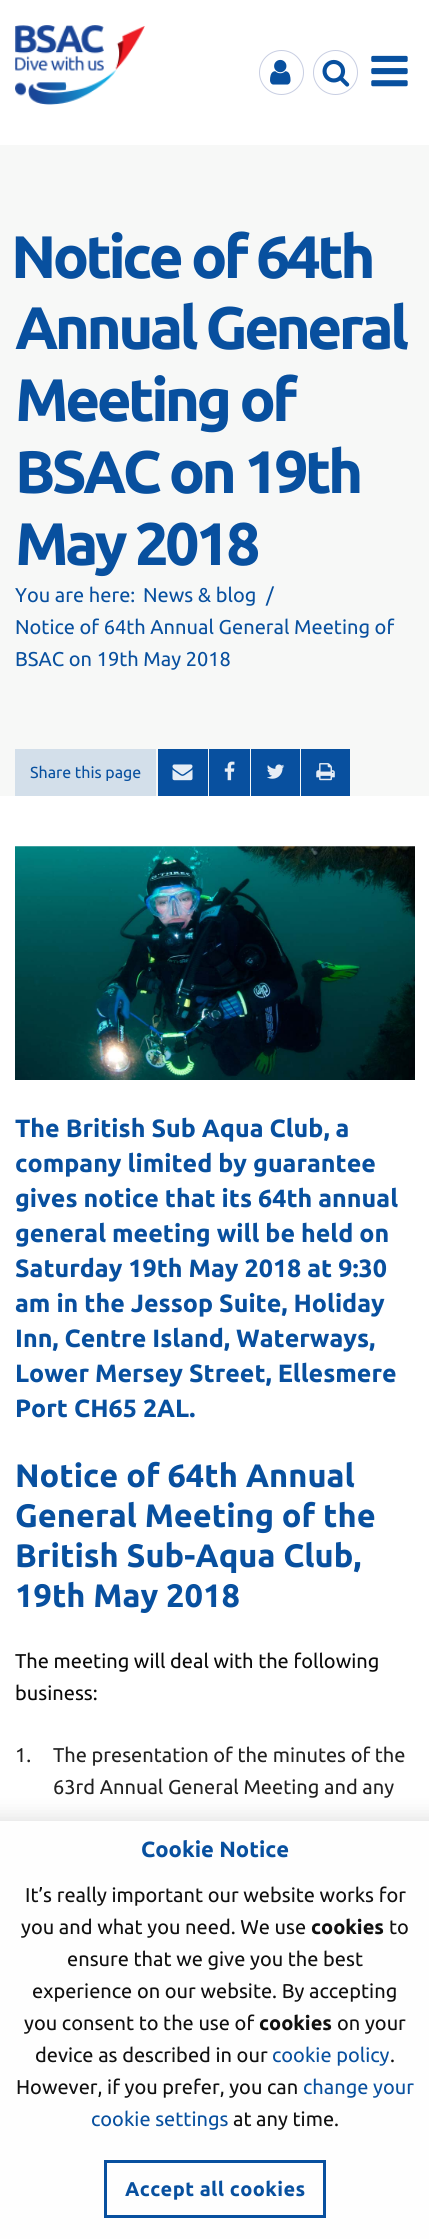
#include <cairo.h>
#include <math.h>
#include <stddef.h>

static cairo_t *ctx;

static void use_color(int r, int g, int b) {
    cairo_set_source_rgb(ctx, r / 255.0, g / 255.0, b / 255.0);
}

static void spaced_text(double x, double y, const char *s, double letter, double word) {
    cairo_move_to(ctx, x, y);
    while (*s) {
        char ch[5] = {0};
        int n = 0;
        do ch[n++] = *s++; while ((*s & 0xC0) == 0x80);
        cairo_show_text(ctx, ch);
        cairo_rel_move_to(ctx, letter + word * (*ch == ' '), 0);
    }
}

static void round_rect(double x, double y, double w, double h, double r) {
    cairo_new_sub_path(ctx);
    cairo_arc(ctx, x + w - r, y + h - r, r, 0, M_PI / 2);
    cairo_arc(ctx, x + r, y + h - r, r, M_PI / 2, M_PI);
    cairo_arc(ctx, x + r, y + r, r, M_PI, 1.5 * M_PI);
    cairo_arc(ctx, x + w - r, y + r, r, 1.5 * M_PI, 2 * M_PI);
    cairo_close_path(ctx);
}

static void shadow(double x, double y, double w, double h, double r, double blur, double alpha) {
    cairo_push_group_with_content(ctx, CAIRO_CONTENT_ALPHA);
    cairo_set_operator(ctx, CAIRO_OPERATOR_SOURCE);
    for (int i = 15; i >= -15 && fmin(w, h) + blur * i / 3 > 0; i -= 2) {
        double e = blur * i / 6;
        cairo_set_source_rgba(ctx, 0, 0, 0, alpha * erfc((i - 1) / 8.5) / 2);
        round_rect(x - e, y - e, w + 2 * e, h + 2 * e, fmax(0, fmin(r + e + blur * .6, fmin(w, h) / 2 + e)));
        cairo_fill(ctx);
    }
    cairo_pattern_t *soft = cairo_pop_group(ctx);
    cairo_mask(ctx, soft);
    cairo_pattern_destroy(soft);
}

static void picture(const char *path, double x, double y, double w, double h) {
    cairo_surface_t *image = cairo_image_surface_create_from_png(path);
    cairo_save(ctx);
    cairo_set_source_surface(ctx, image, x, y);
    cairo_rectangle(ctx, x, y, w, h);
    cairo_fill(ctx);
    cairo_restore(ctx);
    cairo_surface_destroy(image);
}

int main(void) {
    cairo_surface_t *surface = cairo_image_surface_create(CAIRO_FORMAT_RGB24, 429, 2239);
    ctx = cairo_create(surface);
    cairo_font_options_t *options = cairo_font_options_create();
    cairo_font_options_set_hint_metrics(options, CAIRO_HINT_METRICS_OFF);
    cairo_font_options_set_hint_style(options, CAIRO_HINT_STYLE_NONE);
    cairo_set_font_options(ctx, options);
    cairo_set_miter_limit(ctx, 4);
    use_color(255, 255, 255);
    cairo_paint(ctx);
    picture("img1.png", 15, 25, 130, 80);
    cairo_arc(ctx, 281.5, 72.5, 22, 0, 2 * M_PI);
    use_color(200, 206, 226);
    cairo_set_line_width(ctx, 1);
    cairo_stroke(ctx);
    picture("img2.png", 270, 59, 21, 26);
    cairo_arc(ctx, 335.5, 72.5, 22, 0, 2 * M_PI);
    cairo_stroke(ctx);
    picture("img3.png", 322, 59, 28, 28);
    picture("img4.png", 371, 55, 37, 32);
    use_color(247, 248, 247);
    cairo_rectangle(ctx, 0, 145, 429, 651);
    cairo_fill(ctx);
    cairo_select_font_face(ctx, "Ubuntu", CAIRO_FONT_SLANT_NORMAL, CAIRO_FONT_WEIGHT_BOLD);
    cairo_set_font_size(ctx, 60);
    use_color(8, 80, 159);
    spaced_text(11, 278, "Notice of 64th", -3.6, 0);
    spaced_text(15, 349, "Annual General", -3.6, 0);
    spaced_text(15, 421, "Meeting of", -3.6, 0);
    spaced_text(15, 493, "BSAC on 19th", -3.6, 0);
    spaced_text(15, 565, "May 2018", -3.6, 0);
    cairo_select_font_face(ctx, "Ubuntu", CAIRO_FONT_SLANT_NORMAL, CAIRO_FONT_WEIGHT_NORMAL);
    cairo_set_font_size(ctx, 20);
    cairo_move_to(ctx, 15, 602);
    cairo_show_text(ctx, "You are here:");
    cairo_move_to(ctx, 143, 602);
    cairo_show_text(ctx, "News & blog");
    cairo_move_to(ctx, 266, 602);
    cairo_show_text(ctx, "/");
    cairo_move_to(ctx, 15, 634);
    cairo_show_text(ctx, "Notice of 64th Annual General Meeting of");
    cairo_move_to(ctx, 15, 666);
    cairo_show_text(ctx, "BSAC on 19th May 2018");
    use_color(211, 223, 234);
    cairo_rectangle(ctx, 15, 749, 141, 47);
    cairo_fill(ctx);
    cairo_set_font_size(ctx, 16);
    use_color(8, 80, 159);
    cairo_move_to(ctx, 30, 778);
    cairo_show_text(ctx, "Share this page");
    cairo_rectangle(ctx, 158, 749, 50, 47);
    cairo_fill(ctx);
    picture("img5.png", 172, 764, 21, 17);
    cairo_rectangle(ctx, 209, 749, 41, 47);
    cairo_fill(ctx);
    picture("img6.png", 224, 761, 11, 20);
    cairo_rectangle(ctx, 251, 749, 49, 47);
    cairo_fill(ctx);
    picture("img7.png", 267, 764, 18, 15);
    cairo_rectangle(ctx, 301, 749, 49, 47);
    cairo_fill(ctx);
    picture("img8.png", 316, 763, 19, 18);
    picture("img9.png", 15, 846, 400, 234);
    cairo_select_font_face(ctx, "Ubuntu", CAIRO_FONT_SLANT_NORMAL, CAIRO_FONT_WEIGHT_BOLD);
    cairo_set_font_size(ctx, 25);
    cairo_move_to(ctx, 15, 1137);
    cairo_show_text(ctx, "The British Sub Aqua Club, a");
    cairo_move_to(ctx, 15, 1172);
    cairo_show_text(ctx, "company limited by guarantee");
    cairo_move_to(ctx, 15, 1207);
    cairo_show_text(ctx, "gives notice that its 64th annual");
    cairo_move_to(ctx, 15, 1242);
    cairo_show_text(ctx, "general meeting will be held on");
    cairo_move_to(ctx, 15, 1277);
    cairo_show_text(ctx, "Saturday 19th May 2018 at 9:30");
    cairo_move_to(ctx, 15, 1312);
    cairo_show_text(ctx, "am in the Jessop Suite, Holiday");
    cairo_move_to(ctx, 15, 1347);
    cairo_show_text(ctx, "Inn, Centre Island, Waterways,");
    cairo_move_to(ctx, 15, 1382);
    cairo_show_text(ctx, "Lower Mersey Street, Ellesmere");
    cairo_move_to(ctx, 15, 1417);
    cairo_show_text(ctx, "Port CH65 2AL.");
    cairo_set_font_size(ctx, 32.5);
    cairo_move_to(ctx, 15, 1487);
    cairo_show_text(ctx, "Notice of 64th Annual");
    cairo_move_to(ctx, 15, 1527);
    cairo_show_text(ctx, "General Meeting of the");
    cairo_move_to(ctx, 15, 1567);
    cairo_show_text(ctx, "British Sub-Aqua Club,");
    cairo_move_to(ctx, 15, 1607);
    cairo_show_text(ctx, "19th May 2018");
    cairo_select_font_face(ctx, "Ubuntu", CAIRO_FONT_SLANT_NORMAL, CAIRO_FONT_WEIGHT_NORMAL);
    cairo_set_font_size(ctx, 20);
    use_color(10, 10, 10);
    cairo_move_to(ctx, 15, 1668);
    cairo_show_text(ctx, "The meeting will deal with the following");
    cairo_move_to(ctx, 15, 1700);
    cairo_show_text(ctx, "business:");
    use_color(34, 34, 34);
    cairo_move_to(ctx, 15, 1762);
    cairo_show_text(ctx, "1.");
    cairo_move_to(ctx, 53, 1762);
    cairo_show_text(ctx, "The presentation of the minutes of the");
    cairo_move_to(ctx, 53, 1794);
    cairo_show_text(ctx, "63rd Annual General Meeting and any");
    use_color(0, 0, 0);
    shadow(-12, 1815, 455, 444, 0, 9.5, 0.1);
    use_color(254, 254, 254);
    cairo_rectangle(ctx, 0, 1821, 429, 418);
    cairo_fill(ctx);
    cairo_select_font_face(ctx, "Ubuntu", CAIRO_FONT_SLANT_NORMAL, CAIRO_FONT_WEIGHT_BOLD);
    cairo_set_font_size(ctx, 22);
    use_color(8, 80, 159);
    cairo_move_to(ctx, 141, 1857);
    cairo_show_text(ctx, "Cookie Notice");
    cairo_select_font_face(ctx, "Ubuntu", CAIRO_FONT_SLANT_NORMAL, CAIRO_FONT_WEIGHT_NORMAL);
    cairo_set_font_size(ctx, 20);
    use_color(16, 16, 16);
    cairo_move_to(ctx, 25, 1902);
    cairo_show_text(ctx, "It’s really important our website works for");
    cairo_move_to(ctx, 21, 1934);
    cairo_show_text(ctx, "you and what you need. We use");
    cairo_select_font_face(ctx, "Ubuntu", CAIRO_FONT_SLANT_NORMAL, CAIRO_FONT_WEIGHT_BOLD);
    cairo_move_to(ctx, 311, 1934);
    cairo_show_text(ctx, "cookies");
    cairo_select_font_face(ctx, "Ubuntu", CAIRO_FONT_SLANT_NORMAL, CAIRO_FONT_WEIGHT_NORMAL);
    cairo_move_to(ctx, 389, 1934);
    cairo_show_text(ctx, "to");
    cairo_move_to(ctx, 67, 1966);
    cairo_show_text(ctx, "ensure that we give you the best");
    cairo_move_to(ctx, 32, 1998);
    cairo_show_text(ctx, "experience on our website. By accepting");
    cairo_move_to(ctx, 24, 2030);
    cairo_show_text(ctx, "you consent to the use of");
    cairo_select_font_face(ctx, "Ubuntu", CAIRO_FONT_SLANT_NORMAL, CAIRO_FONT_WEIGHT_BOLD);
    cairo_move_to(ctx, 259, 2030);
    cairo_show_text(ctx, "cookies");
    cairo_select_font_face(ctx, "Ubuntu", CAIRO_FONT_SLANT_NORMAL, CAIRO_FONT_WEIGHT_NORMAL);
    cairo_move_to(ctx, 337, 2030);
    cairo_show_text(ctx, "on your");
    cairo_move_to(ctx, 35, 2062);
    cairo_show_text(ctx, "device as described in our");
    use_color(8, 80, 159);
    cairo_move_to(ctx, 272, 2062);
    cairo_show_text(ctx, "cookie policy");
    use_color(16, 16, 16);
    cairo_move_to(ctx, 390, 2062);
    cairo_show_text(ctx, ".");
    cairo_move_to(ctx, 16, 2094);
    cairo_show_text(ctx, "However, if you prefer, you can");
    use_color(8, 80, 159);
    cairo_move_to(ctx, 303, 2094);
    cairo_show_text(ctx, "change your");
    cairo_move_to(ctx, 91, 2126);
    cairo_show_text(ctx, "cookie settings");
    use_color(16, 16, 16);
    cairo_move_to(ctx, 233, 2126);
    cairo_show_text(ctx, "at any time.");
    cairo_rectangle(ctx, 105.5, 2161.5, 219, 55);
    use_color(8, 80, 159);
    cairo_set_line_width(ctx, 3);
    cairo_stroke(ctx);
    cairo_select_font_face(ctx, "Ubuntu", CAIRO_FONT_SLANT_NORMAL, CAIRO_FONT_WEIGHT_BOLD);
    spaced_text(125, 2196, "Accept all cookies", 0.4, 0);
    cairo_surface_write_to_png(surface, "result.png");
    cairo_font_options_destroy(options);
    cairo_destroy(ctx);
    cairo_surface_destroy(surface);
    return 0;
}
